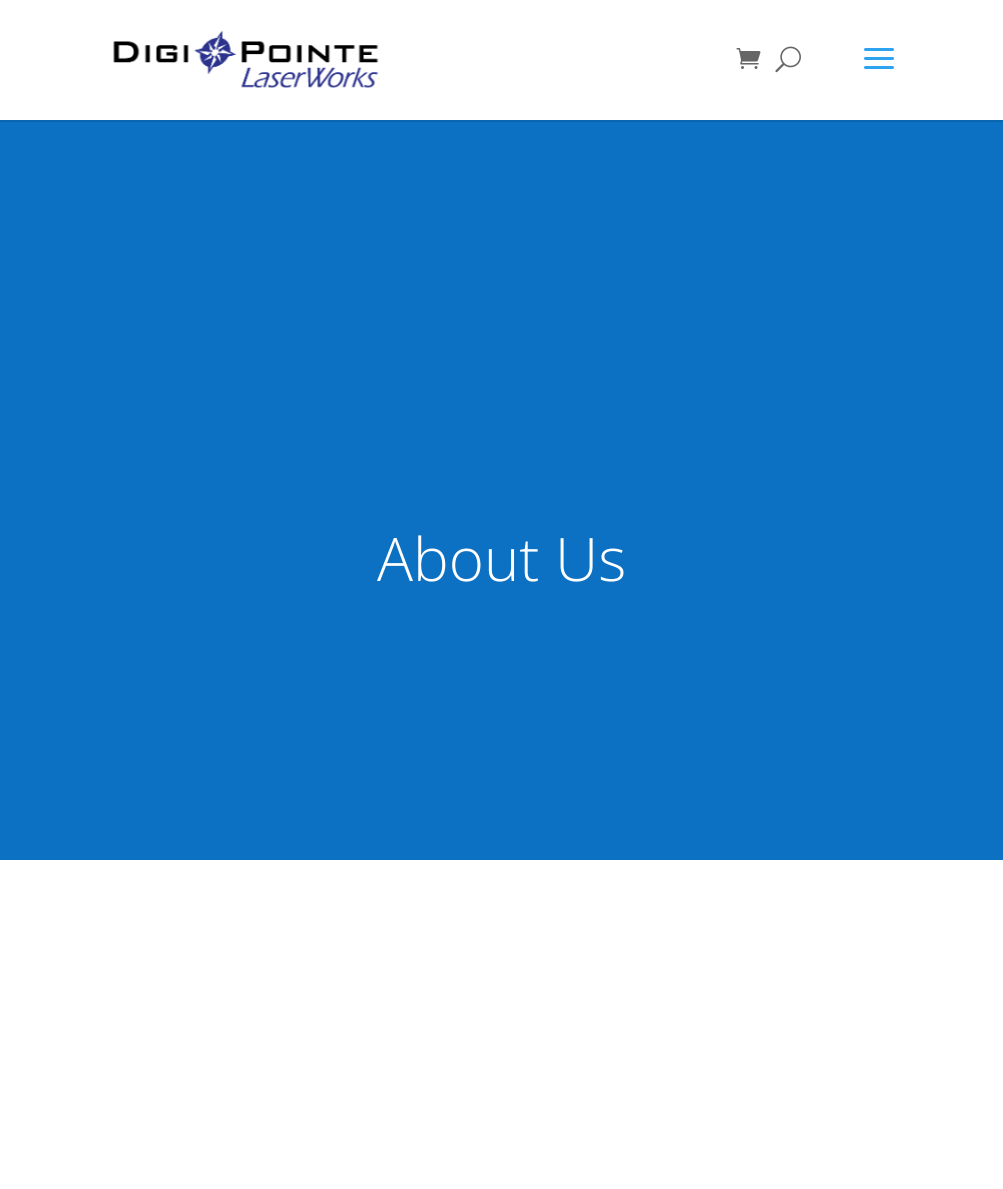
#include <cairo.h>
#include <math.h>
#include <stddef.h>

static cairo_t *ctx;

static void use_color(int r, int g, int b) {
    cairo_set_source_rgb(ctx, r / 255.0, g / 255.0, b / 255.0);
}

static void picture(const char *path, double x, double y, double w, double h) {
    cairo_surface_t *image = cairo_image_surface_create_from_png(path);
    cairo_save(ctx);
    cairo_set_source_surface(ctx, image, x, y);
    cairo_rectangle(ctx, x, y, w, h);
    cairo_fill(ctx);
    cairo_restore(ctx);
    cairo_surface_destroy(image);
}

int main(void) {
    cairo_surface_t *surface = cairo_image_surface_create(CAIRO_FORMAT_RGB24, 1003, 1189);
    ctx = cairo_create(surface);
    cairo_font_options_t *options = cairo_font_options_create();
    cairo_font_options_set_hint_metrics(options, CAIRO_HINT_METRICS_OFF);
    cairo_font_options_set_hint_style(options, CAIRO_HINT_STYLE_NONE);
    cairo_set_font_options(ctx, options);
    cairo_set_miter_limit(ctx, 4);
    use_color(255, 255, 255);
    cairo_paint(ctx);
    use_color(11, 102, 176);
    cairo_new_path(ctx);
    cairo_move_to(ctx, 0, 120);
    cairo_line_to(ctx, 0, 122);
    cairo_line_to(ctx, 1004, 122);
    cairo_line_to(ctx, 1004, 2);
    cairo_line_to(ctx, 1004, 120);
    cairo_close_path(ctx);
    cairo_fill(ctx);
    picture("img1.png", 113, 30, 266, 58);
    picture("img2.png", 736, 48, 25, 21);
    picture("img3.png", 775, 46, 26, 27);
    picture("img4.png", 864, 48, 30, 21);
    use_color(12, 113, 195);
    cairo_rectangle(ctx, 0, 122, 1003, 738);
    cairo_fill(ctx);
    cairo_select_font_face(ctx, "Open Sans Light", CAIRO_FONT_SLANT_NORMAL, CAIRO_FONT_WEIGHT_NORMAL);
    cairo_set_font_size(ctx, 60);
    use_color(255, 255, 255);
    cairo_move_to(ctx, 377, 581);
    cairo_show_text(ctx, "About Us");
    cairo_surface_write_to_png(surface, "result.png");
    cairo_font_options_destroy(options);
    cairo_destroy(ctx);
    cairo_surface_destroy(surface);
    return 0;
}
